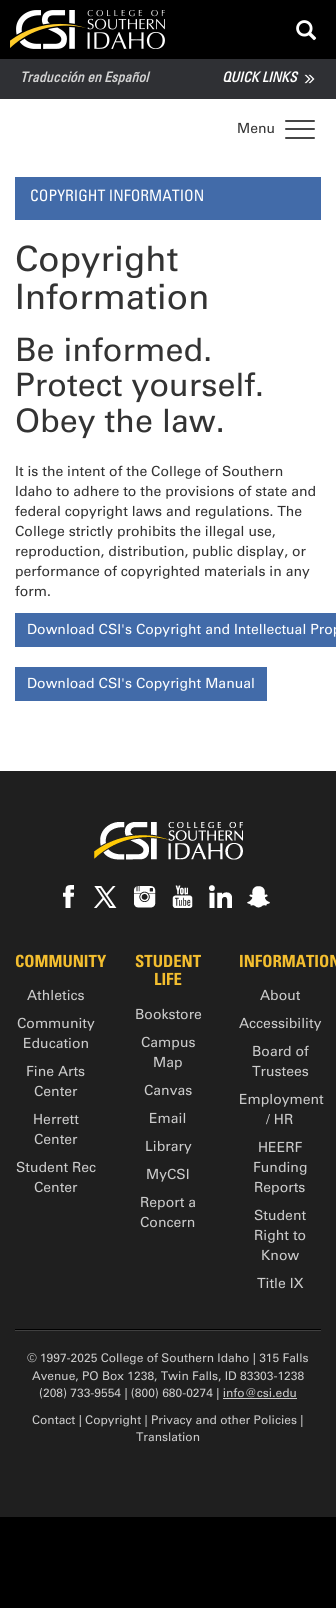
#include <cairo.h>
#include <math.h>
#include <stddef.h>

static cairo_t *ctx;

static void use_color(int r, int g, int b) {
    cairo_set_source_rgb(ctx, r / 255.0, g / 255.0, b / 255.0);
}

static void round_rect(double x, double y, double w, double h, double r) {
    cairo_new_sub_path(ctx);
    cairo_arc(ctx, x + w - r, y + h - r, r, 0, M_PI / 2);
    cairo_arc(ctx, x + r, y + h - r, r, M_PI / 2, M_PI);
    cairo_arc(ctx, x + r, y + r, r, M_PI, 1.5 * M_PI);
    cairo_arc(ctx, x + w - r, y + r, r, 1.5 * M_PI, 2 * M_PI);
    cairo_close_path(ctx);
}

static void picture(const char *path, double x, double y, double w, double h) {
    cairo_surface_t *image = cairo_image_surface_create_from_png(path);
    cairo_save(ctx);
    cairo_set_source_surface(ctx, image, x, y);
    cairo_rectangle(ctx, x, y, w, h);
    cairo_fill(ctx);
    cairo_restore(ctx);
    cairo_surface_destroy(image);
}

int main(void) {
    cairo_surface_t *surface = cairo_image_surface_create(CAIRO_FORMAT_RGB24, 336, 1608);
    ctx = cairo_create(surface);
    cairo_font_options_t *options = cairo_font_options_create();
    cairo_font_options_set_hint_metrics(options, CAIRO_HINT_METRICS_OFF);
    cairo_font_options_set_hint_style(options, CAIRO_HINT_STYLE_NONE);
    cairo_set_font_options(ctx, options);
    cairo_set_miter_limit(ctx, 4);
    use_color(0, 0, 0);
    cairo_paint(ctx);
    picture("img1.png", 10, 10, 155, 39);
    picture("img2.png", 296, 20, 21, 21);
    use_color(47, 48, 52);
    cairo_rectangle(ctx, 0, 59, 336, 40);
    cairo_fill(ctx);
    cairo_select_font_face(ctx, "Univers", CAIRO_FONT_SLANT_ITALIC, CAIRO_FONT_WEIGHT_BOLD);
    cairo_set_font_size(ctx, 14);
    use_color(211, 211, 211);
    cairo_move_to(ctx, 20, 82);
    cairo_show_text(ctx, "Traducción en Español");
    use_color(255, 255, 255);
    cairo_move_to(ctx, 222, 82);
    cairo_show_text(ctx, "QUICK LINKS");
    picture("img3.png", 304, 74, 7, 10);
    picture("img4.png", 308, 74, 7, 10);
    cairo_rectangle(ctx, 0, 99, 336, 672);
    cairo_fill(ctx);
    use_color(70, 70, 70);
    round_rect(285, 120, 30, 2, 1);
    cairo_fill(ctx);
    cairo_select_font_face(ctx, "Univers", CAIRO_FONT_SLANT_NORMAL, CAIRO_FONT_WEIGHT_NORMAL);
    use_color(51, 51, 51);
    cairo_move_to(ctx, 237, 133);
    cairo_show_text(ctx, "Menu");
    use_color(70, 70, 70);
    round_rect(285, 128, 30, 2, 1);
    cairo_fill(ctx);
    round_rect(285, 137, 30, 2, 1);
    cairo_fill(ctx);
    use_color(66, 107, 169);
    cairo_rectangle(ctx, 15, 177, 306, 43);
    cairo_fill(ctx);
    cairo_select_font_face(ctx, "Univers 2", CAIRO_FONT_SLANT_NORMAL, CAIRO_FONT_WEIGHT_NORMAL);
    cairo_set_font_size(ctx, 15.75);
    use_color(255, 255, 255);
    cairo_move_to(ctx, 30, 201);
    cairo_show_text(ctx, "COPYRIGHT INFORMATION");
    cairo_select_font_face(ctx, "Univers", CAIRO_FONT_SLANT_NORMAL, CAIRO_FONT_WEIGHT_NORMAL);
    cairo_set_font_size(ctx, 35);
    use_color(51, 51, 51);
    cairo_move_to(ctx, 15, 271);
    cairo_show_text(ctx, "Copyright");
    cairo_move_to(ctx, 15, 309);
    cairo_show_text(ctx, "Information");
    cairo_set_font_size(ctx, 32.25);
    cairo_move_to(ctx, 15, 361);
    cairo_show_text(ctx, "Be informed.");
    cairo_move_to(ctx, 15, 396);
    cairo_show_text(ctx, "Protect yourself.");
    cairo_move_to(ctx, 15, 432);
    cairo_show_text(ctx, "Obey the law.");
    cairo_set_font_size(ctx, 14);
    cairo_move_to(ctx, 15, 476);
    cairo_show_text(ctx, "It is the intent of the College of Southern");
    cairo_move_to(ctx, 15, 496);
    cairo_show_text(ctx, "Idaho to adhere to the provisions of state and");
    cairo_move_to(ctx, 15, 516);
    cairo_show_text(ctx, "federal copyright laws and regulations. The");
    cairo_move_to(ctx, 15, 536);
    cairo_show_text(ctx, "College strictly prohibits the illegal use,");
    cairo_move_to(ctx, 15, 556);
    cairo_show_text(ctx, "reproduction, distribution, public display, or");
    cairo_move_to(ctx, 15, 576);
    cairo_show_text(ctx, "performance of copyrighted materials in any");
    cairo_move_to(ctx, 15, 596);
    cairo_show_text(ctx, "form.");
    use_color(66, 107, 169);
    cairo_rectangle(ctx, 15, 613, 321, 34);
    cairo_fill(ctx);
    use_color(255, 255, 255);
    cairo_move_to(ctx, 27, 634);
    cairo_show_text(ctx, "Download CSI's Copyright and Intellectual Prop");
    use_color(66, 107, 169);
    cairo_rectangle(ctx, 15, 667, 252, 34);
    cairo_fill(ctx);
    use_color(255, 255, 255);
    cairo_move_to(ctx, 27, 688);
    cairo_show_text(ctx, "Download CSI's Copyright Manual");
    use_color(31, 31, 31);
    cairo_rectangle(ctx, 0, 771, 336, 746);
    cairo_fill(ctx);
    picture("img5.png", 94, 822, 149, 38);
    picture("img6.png", 63, 885, 11, 23);
    picture("img7.png", 94, 886, 23, 22);
    picture("img8.png", 134, 886, 22, 22);
    picture("img9.png", 172, 885, 21, 23);
    picture("img10.png", 209, 885, 23, 23);
    picture("img11.png", 247, 886, 23, 22);
    cairo_select_font_face(ctx, "Univers", CAIRO_FONT_SLANT_NORMAL, CAIRO_FONT_WEIGHT_BOLD);
    cairo_set_font_size(ctx, 16.75);
    use_color(243, 190, 47);
    cairo_move_to(ctx, 15, 967);
    cairo_show_text(ctx, "COMMUNITY");
    cairo_select_font_face(ctx, "Univers", CAIRO_FONT_SLANT_NORMAL, CAIRO_FONT_WEIGHT_NORMAL);
    cairo_set_font_size(ctx, 14);
    use_color(204, 204, 204);
    cairo_move_to(ctx, 27, 1000);
    cairo_show_text(ctx, "Athletics");
    cairo_move_to(ctx, 17, 1028);
    cairo_show_text(ctx, "Community");
    cairo_move_to(ctx, 23, 1048);
    cairo_show_text(ctx, "Education");
    cairo_move_to(ctx, 26, 1076);
    cairo_show_text(ctx, "Fine Arts");
    cairo_move_to(ctx, 34, 1096);
    cairo_show_text(ctx, "Center");
    cairo_move_to(ctx, 33, 1124);
    cairo_show_text(ctx, "Herrett");
    cairo_move_to(ctx, 34, 1144);
    cairo_show_text(ctx, "Center");
    cairo_move_to(ctx, 16, 1172);
    cairo_show_text(ctx, "Student Rec");
    cairo_move_to(ctx, 34, 1192);
    cairo_show_text(ctx, "Center");
    cairo_select_font_face(ctx, "Univers", CAIRO_FONT_SLANT_NORMAL, CAIRO_FONT_WEIGHT_BOLD);
    cairo_set_font_size(ctx, 16.75);
    use_color(243, 190, 47);
    cairo_move_to(ctx, 135, 967);
    cairo_show_text(ctx, "STUDENT");
    cairo_move_to(ctx, 154, 985);
    cairo_show_text(ctx, "LIFE");
    cairo_select_font_face(ctx, "Univers", CAIRO_FONT_SLANT_NORMAL, CAIRO_FONT_WEIGHT_NORMAL);
    cairo_set_font_size(ctx, 14);
    use_color(204, 204, 204);
    cairo_move_to(ctx, 135, 1019);
    cairo_show_text(ctx, "Bookstore");
    cairo_move_to(ctx, 141, 1047);
    cairo_show_text(ctx, "Campus");
    cairo_move_to(ctx, 153, 1067);
    cairo_show_text(ctx, "Map");
    cairo_move_to(ctx, 144, 1095);
    cairo_show_text(ctx, "Canvas");
    cairo_move_to(ctx, 149, 1123);
    cairo_show_text(ctx, "Email");
    cairo_move_to(ctx, 145, 1151);
    cairo_show_text(ctx, "Library");
    cairo_move_to(ctx, 146, 1179);
    cairo_show_text(ctx, "MyCSI");
    cairo_move_to(ctx, 140, 1207);
    cairo_show_text(ctx, "Report a");
    cairo_move_to(ctx, 140, 1227);
    cairo_show_text(ctx, "Concern");
    cairo_select_font_face(ctx, "Univers", CAIRO_FONT_SLANT_NORMAL, CAIRO_FONT_WEIGHT_BOLD);
    cairo_set_font_size(ctx, 16.75);
    use_color(243, 190, 47);
    cairo_move_to(ctx, 239, 967);
    cairo_show_text(ctx, "INFORMATION");
    cairo_select_font_face(ctx, "Univers", CAIRO_FONT_SLANT_NORMAL, CAIRO_FONT_WEIGHT_NORMAL);
    cairo_set_font_size(ctx, 14);
    use_color(204, 204, 204);
    cairo_move_to(ctx, 260, 1000);
    cairo_show_text(ctx, "About");
    cairo_move_to(ctx, 239, 1028);
    cairo_show_text(ctx, "Accessibility");
    cairo_move_to(ctx, 252, 1056);
    cairo_show_text(ctx, "Board of");
    cairo_move_to(ctx, 252, 1076);
    cairo_show_text(ctx, "Trustees");
    cairo_move_to(ctx, 239, 1104);
    cairo_show_text(ctx, "Employment");
    cairo_move_to(ctx, 266, 1124);
    cairo_show_text(ctx, "/ HR");
    cairo_move_to(ctx, 258, 1152);
    cairo_show_text(ctx, "HEERF");
    cairo_move_to(ctx, 253, 1172);
    cairo_show_text(ctx, "Funding");
    cairo_move_to(ctx, 254, 1192);
    cairo_show_text(ctx, "Reports");
    cairo_move_to(ctx, 254, 1220);
    cairo_show_text(ctx, "Student");
    cairo_move_to(ctx, 254, 1240);
    cairo_show_text(ctx, "Right to");
    cairo_move_to(ctx, 261, 1260);
    cairo_show_text(ctx, "Know");
    cairo_move_to(ctx, 257, 1288);
    cairo_show_text(ctx, "Title IX");
    use_color(0, 0, 0);
    cairo_rectangle(ctx, 15, 1329, 306, 1);
    cairo_fill(ctx);
    use_color(64, 64, 64);
    cairo_rectangle(ctx, 15, 1330, 306, 1);
    cairo_fill(ctx);
    cairo_set_font_size(ctx, 12);
    use_color(204, 204, 204);
    cairo_move_to(ctx, 27, 1362);
    cairo_show_text(ctx, "© 1997-2025 College of Southern Idaho | 315 Falls");
    cairo_move_to(ctx, 32, 1380);
    cairo_show_text(ctx, "Avenue, PO Box 1238, Twin Falls, ID 83303-1238");
    cairo_move_to(ctx, 39, 1397);
    cairo_show_text(ctx, "(208) 733-9554 | (800) 680-0274 | info@csi.edu");
    cairo_rectangle(ctx, 223, 1398, 74, 1);
    cairo_fill(ctx);
    cairo_move_to(ctx, 32, 1424);
    cairo_show_text(ctx, "Contact | Copyright | Privacy and other Policies |");
    cairo_move_to(ctx, 136, 1441);
    cairo_show_text(ctx, "Translation");
    cairo_surface_write_to_png(surface, "result.png");
    cairo_font_options_destroy(options);
    cairo_destroy(ctx);
    cairo_surface_destroy(surface);
    return 0;
}
